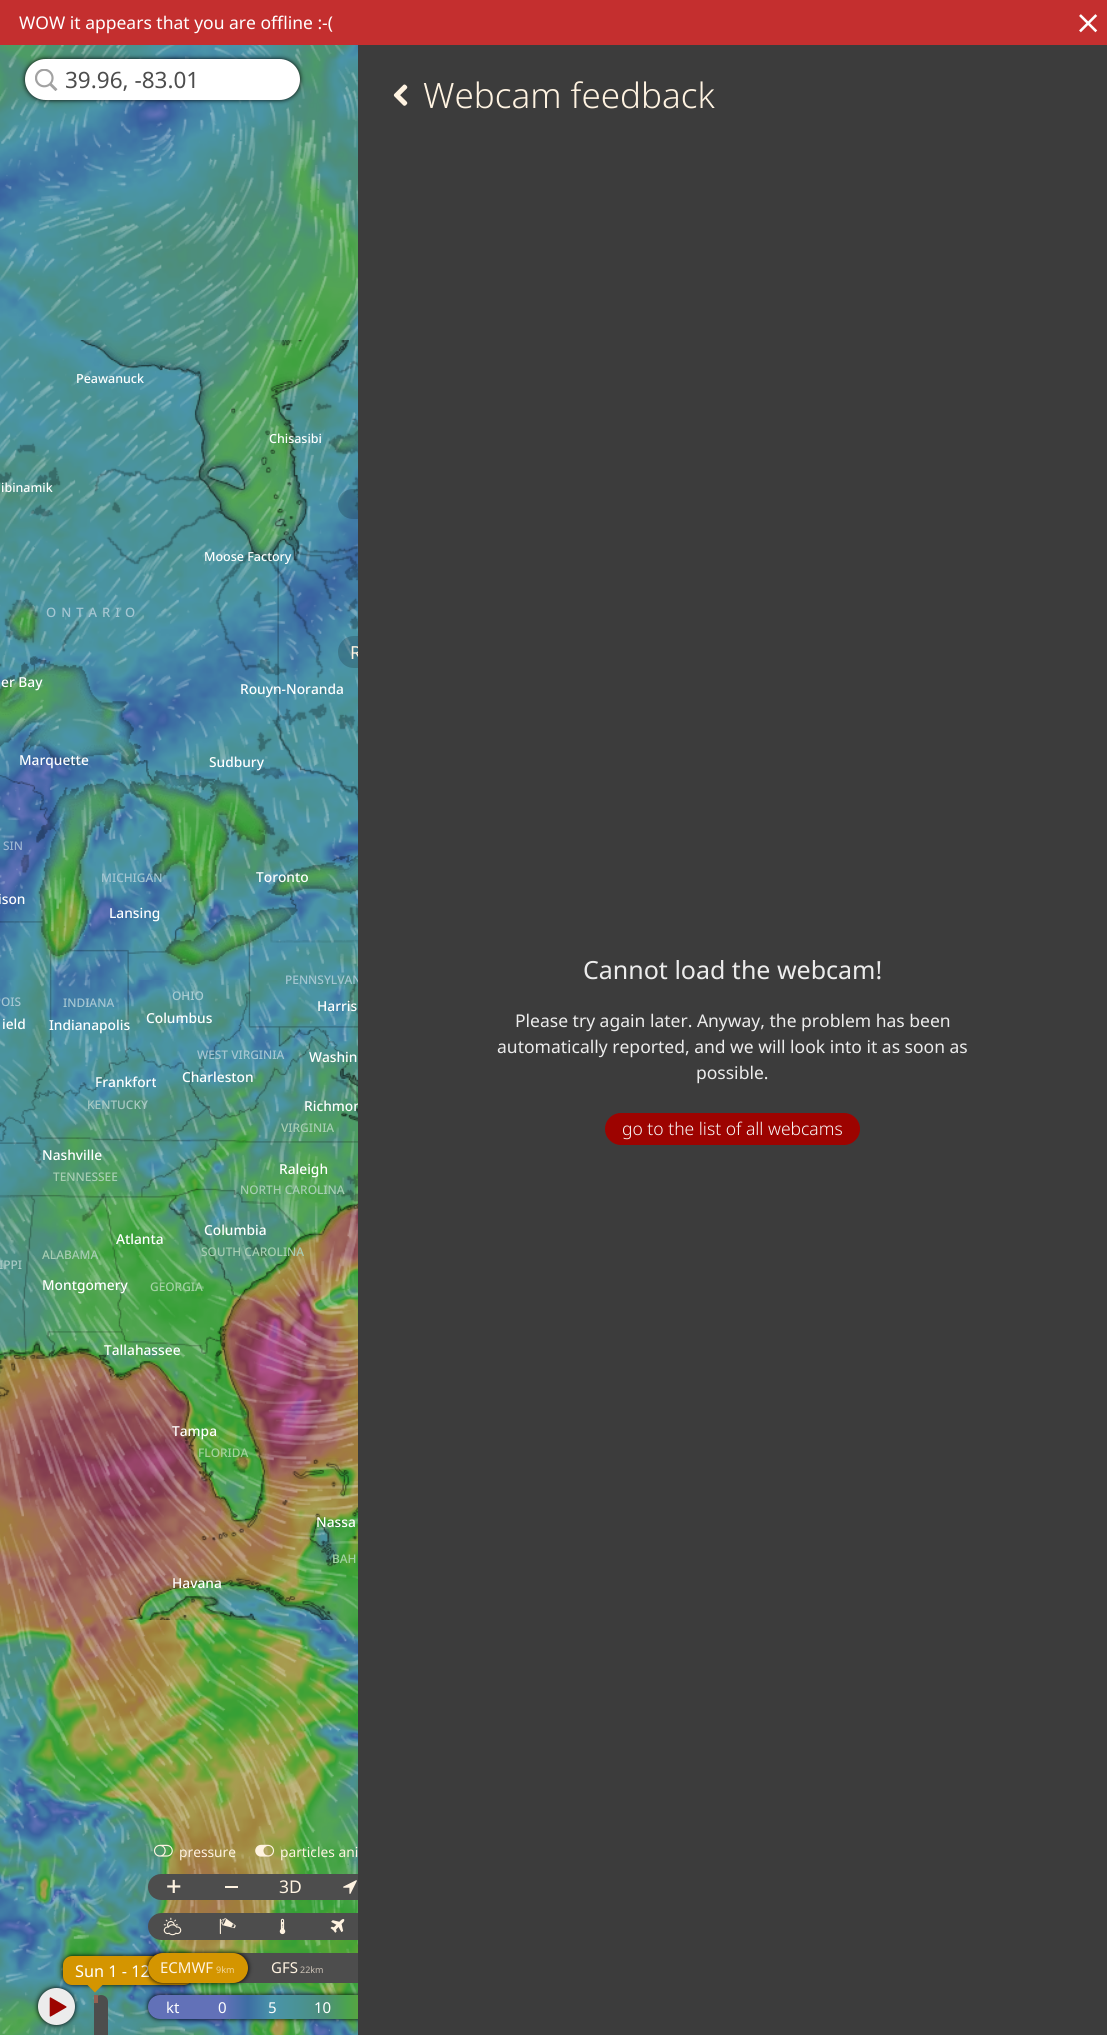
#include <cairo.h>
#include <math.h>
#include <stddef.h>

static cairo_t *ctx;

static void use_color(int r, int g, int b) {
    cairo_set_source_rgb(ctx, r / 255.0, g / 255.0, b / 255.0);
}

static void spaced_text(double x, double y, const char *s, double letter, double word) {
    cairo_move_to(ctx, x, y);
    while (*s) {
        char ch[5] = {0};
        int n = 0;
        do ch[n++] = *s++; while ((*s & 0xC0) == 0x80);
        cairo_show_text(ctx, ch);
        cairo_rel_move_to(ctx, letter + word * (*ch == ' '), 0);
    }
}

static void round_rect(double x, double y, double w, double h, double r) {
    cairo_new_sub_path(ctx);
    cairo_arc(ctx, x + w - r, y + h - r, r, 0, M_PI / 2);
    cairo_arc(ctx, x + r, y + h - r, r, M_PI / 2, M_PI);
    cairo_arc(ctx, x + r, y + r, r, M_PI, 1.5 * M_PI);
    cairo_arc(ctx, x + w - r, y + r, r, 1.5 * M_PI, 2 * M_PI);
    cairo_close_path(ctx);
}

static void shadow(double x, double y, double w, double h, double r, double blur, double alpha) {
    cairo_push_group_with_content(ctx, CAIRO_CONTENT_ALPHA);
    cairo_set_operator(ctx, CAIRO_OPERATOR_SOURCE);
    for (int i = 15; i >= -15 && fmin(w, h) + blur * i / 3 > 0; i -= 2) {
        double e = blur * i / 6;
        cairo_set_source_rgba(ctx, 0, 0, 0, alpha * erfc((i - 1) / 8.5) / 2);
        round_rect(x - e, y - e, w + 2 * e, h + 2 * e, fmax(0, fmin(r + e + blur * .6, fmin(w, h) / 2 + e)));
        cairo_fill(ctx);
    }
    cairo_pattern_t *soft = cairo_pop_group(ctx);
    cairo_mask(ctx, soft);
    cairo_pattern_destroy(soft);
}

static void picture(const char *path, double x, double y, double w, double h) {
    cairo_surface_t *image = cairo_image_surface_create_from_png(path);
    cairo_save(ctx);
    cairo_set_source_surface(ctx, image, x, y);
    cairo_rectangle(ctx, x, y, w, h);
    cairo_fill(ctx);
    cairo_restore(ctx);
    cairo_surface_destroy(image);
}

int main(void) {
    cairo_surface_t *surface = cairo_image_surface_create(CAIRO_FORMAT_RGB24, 1107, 2035);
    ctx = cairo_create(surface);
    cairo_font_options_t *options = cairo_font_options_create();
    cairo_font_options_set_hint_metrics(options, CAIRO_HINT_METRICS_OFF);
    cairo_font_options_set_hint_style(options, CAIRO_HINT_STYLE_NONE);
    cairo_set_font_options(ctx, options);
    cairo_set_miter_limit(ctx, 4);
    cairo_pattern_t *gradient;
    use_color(255, 255, 255);
    cairo_paint(ctx);
    use_color(196, 47, 47);
    cairo_rectangle(ctx, 0, 0, 1107, 45);
    cairo_fill(ctx);
    cairo_select_font_face(ctx, "Noto Sans", CAIRO_FONT_SLANT_NORMAL, CAIRO_FONT_WEIGHT_NORMAL);
    cairo_set_font_size(ctx, 17.5);
    use_color(255, 255, 255);
    cairo_move_to(ctx, 19, 29);
    cairo_show_text(ctx, "WOW it appears that you are offline :-(");
    picture("img1.png", 1079, 14, 19, 19);
    picture("img8.png", 0, 660, 300, 320);
    picture("img9.png", 300, 660, 58, 320);
    picture("img10.png", 0, 980, 300, 320);
    picture("img11.png", 300, 980, 58, 320);
    picture("img4.png", 0, 45, 300, 295);
    picture("img5.png", 300, 45, 58, 295);
    picture("img6.png", 0, 340, 300, 320);
    picture("img7.png", 300, 340, 58, 320);
    picture("img12.png", 0, 1300, 300, 320);
    picture("img13.png", 300, 1300, 58, 320);
    picture("img14.png", 0, 1620, 300, 320);
    picture("img15.png", 300, 1620, 58, 293);
    picture("img16.png", 0, 1940, 300, 95);
    picture("img17.png", 300, 1940, 58, 95);
    picture("img18.png", 0, 45, 358, 1990);
    picture("img21.png", 0, 660, 300, 320);
    picture("img23.png", 0, 980, 300, 320);
    picture("img24.png", 300, 982, 58, 267);
    cairo_select_font_face(ctx, "Noto Sans Medium", CAIRO_FONT_SLANT_NORMAL, CAIRO_FONT_WEIGHT_NORMAL);
    cairo_set_font_size(ctx, 11.9);
    use_color(165, 198, 210);
    cairo_move_to(ctx, 285, 984);
    cairo_show_text(ctx, "PENNSYLVAN");
    cairo_set_font_size(ctx, 13.75);
    use_color(255, 255, 255);
    cairo_move_to(ctx, 304, 1111);
    cairo_show_text(ctx, "Richmon");
    picture("img20.png", 300, 340, 58, 320);
    cairo_set_source_rgba(ctx, 0, 0, 0, 0.18);
    cairo_new_path(ctx);
    cairo_move_to(ctx, 353, 489);
    cairo_line_to(ctx, 516, 489);
    cairo_line_to(ctx, 516, 519);
    cairo_line_to(ctx, 353, 519);
    cairo_curve_to(ctx, 344.5, 519, 338, 512.5, 338, 504);
    cairo_curve_to(ctx, 338, 495.5, 344.5, 489, 353, 489);
    cairo_close_path(ctx);
    cairo_fill(ctx);
    picture("img22.png", 300, 660, 58, 283);
    cairo_new_path(ctx);
    cairo_move_to(ctx, 354, 636);
    cairo_line_to(ctx, 516, 636);
    cairo_line_to(ctx, 516, 668);
    cairo_line_to(ctx, 354, 668);
    cairo_curve_to(ctx, 345, 668, 338, 661, 338, 652);
    cairo_curve_to(ctx, 338, 643, 345, 636, 354, 636);
    cairo_close_path(ctx);
    cairo_fill(ctx);
    cairo_select_font_face(ctx, "Noto Sans", CAIRO_FONT_SLANT_NORMAL, CAIRO_FONT_WEIGHT_NORMAL);
    cairo_set_font_size(ctx, 18);
    use_color(255, 243, 225);
    cairo_move_to(ctx, 350, 659);
    cairo_show_text(ctx, "R");
    use_color(77, 77, 77);
    round_rect(148, 1874, 400, 26, 13);
    cairo_fill(ctx);
    round_rect(148, 1913, 400, 27, 13.5);
    cairo_fill(ctx);
    use_color(0, 0, 0);
    shadow(38, 1988, 37, 37, 18.5, 2.5, 1);
    use_color(236, 236, 236);
    cairo_arc(ctx, 56.5, 2006.5, 18.5, 0, 2 * M_PI);
    cairo_fill(ctx);
    use_color(0, 0, 0);
    shadow(63, 1956, 130, 29, 9, 2.5, 1);
    use_color(212, 149, 0);
    round_rect(63, 1956, 130, 29, 9);
    cairo_fill(ctx);
    cairo_set_font_size(ctx, 16.25);
    use_color(255, 255, 255);
    cairo_move_to(ctx, 75, 1977);
    cairo_show_text(ctx, "Sun 1 - 12");
    use_color(77, 77, 77);
    round_rect(148, 1953, 400, 30, 15);
    cairo_fill(ctx);
    use_color(0, 0, 0);
    shadow(148, 1995, 400, 24, 12, 2.5, 1);
    gradient = cairo_pattern_create_linear(148, 2007, 548, 2007);
    cairo_pattern_add_color_stop_rgba(gradient, 0, 0.384, 0.443, 0.722, 1);
    cairo_pattern_add_color_stop_rgba(gradient, 0.19, 0.384, 0.443, 0.722, 1);
    cairo_pattern_add_color_stop_rgba(gradient, 0.25, 0.239, 0.431, 0.639, 1);
    cairo_pattern_add_color_stop_rgba(gradient, 0.31, 0.29, 0.58, 0.667, 1);
    cairo_pattern_add_color_stop_rgba(gradient, 0.38, 0.29, 0.573, 0.58, 1);
    cairo_pattern_add_color_stop_rgba(gradient, 0.44, 0.302, 0.557, 0.486, 1);
    cairo_pattern_add_color_stop_rgba(gradient, 0.5, 0.298, 0.643, 0.298, 1);
    cairo_pattern_add_color_stop_rgba(gradient, 0.56, 0.404, 0.643, 0.212, 1);
    cairo_pattern_add_color_stop_rgba(gradient, 0.62, 0.635, 0.529, 0.251, 1);
    cairo_pattern_add_color_stop_rgba(gradient, 0.69, 0.635, 0.427, 0.361, 1);
    cairo_pattern_add_color_stop_rgba(gradient, 0.75, 0.553, 0.247, 0.361, 1);
    cairo_pattern_add_color_stop_rgba(gradient, 0.81, 0.592, 0.294, 0.569, 1);
    cairo_pattern_add_color_stop_rgba(gradient, 0.88, 0.373, 0.392, 0.627, 1);
    cairo_pattern_add_color_stop_rgba(gradient, 0.94, 0.357, 0.533, 0.631, 1);
    cairo_pattern_add_color_stop_rgba(gradient, 1, 0.357, 0.533, 0.631, 1);
    cairo_set_source(ctx, gradient);
    cairo_pattern_destroy(gradient);
    round_rect(148, 1995, 400, 24, 12);
    cairo_fill(ctx);
    use_color(60, 60, 60);
    cairo_rectangle(ctx, 358, 45, 749, 1990);
    cairo_fill(ctx);
    picture("img2.png", 393, 84, 15, 22);
    cairo_select_font_face(ctx, "Noto Sans Light", CAIRO_FONT_SLANT_NORMAL, CAIRO_FONT_WEIGHT_NORMAL);
    cairo_set_font_size(ctx, 35);
    use_color(255, 243, 225);
    cairo_move_to(ctx, 423, 108);
    cairo_show_text(ctx, "Webcam feedback");
    cairo_select_font_face(ctx, "Noto Sans", CAIRO_FONT_SLANT_NORMAL, CAIRO_FONT_WEIGHT_NORMAL);
    cairo_set_font_size(ctx, 25);
    use_color(236, 236, 236);
    cairo_move_to(ctx, 583, 979);
    cairo_show_text(ctx, "Cannot load the webcam!");
    cairo_set_font_size(ctx, 17.5);
    cairo_move_to(ctx, 515, 1027);
    cairo_show_text(ctx, "Please try again later. Anyway, the problem has been");
    cairo_move_to(ctx, 497, 1053);
    cairo_show_text(ctx, "automatically reported, and we will look into it as soon as");
    cairo_move_to(ctx, 696, 1079);
    cairo_show_text(ctx, "possible.");
    use_color(157, 3, 0);
    round_rect(605, 1113, 255, 32, 16);
    cairo_fill(ctx);
    cairo_select_font_face(ctx, "Noto Sans Light", CAIRO_FONT_SLANT_NORMAL, CAIRO_FONT_WEIGHT_NORMAL);
    use_color(248, 248, 248);
    cairo_move_to(ctx, 622, 1135);
    cairo_show_text(ctx, "go to the list of all webcams");
    use_color(0, 0, 0);
    shadow(25, 59, 275, 41, 20.5, 2.5, 1);
    use_color(255, 255, 255);
    round_rect(25, 59, 275, 41, 20.5);
    cairo_fill(ctx);
    picture("img3.png", 35, 69, 23, 22);
    cairo_select_font_face(ctx, "Noto Sans", CAIRO_FONT_SLANT_NORMAL, CAIRO_FONT_WEIGHT_NORMAL);
    cairo_set_font_size(ctx, 22.5);
    use_color(77, 77, 77);
    cairo_move_to(ctx, 65, 88);
    cairo_show_text(ctx, "39.96, -83.01");
    picture("img19.png", 0, 340, 300, 320);
    picture("img25.png", 0, 1300, 300, 320);
    picture("img26.png", 300, 1458, 58, 162);
    cairo_select_font_face(ctx, "Noto Sans Medium", CAIRO_FONT_SLANT_NORMAL, CAIRO_FONT_WEIGHT_NORMAL);
    cairo_set_font_size(ctx, 12.5);
    use_color(255, 255, 255);
    cairo_move_to(ctx, 76, 383);
    cairo_show_text(ctx, "Peawanuck");
    cairo_move_to(ctx, 269, 443);
    cairo_show_text(ctx, "Chisasibi");
    cairo_move_to(ctx, 1, 492);
    cairo_show_text(ctx, "ibinamik");
    cairo_move_to(ctx, 204, 561);
    cairo_show_text(ctx, "Moose Factory");
    cairo_set_font_size(ctx, 13);
    use_color(165, 198, 210);
    spaced_text(46, 617, "ONTARIO", 5, 0);
    cairo_set_font_size(ctx, 13.75);
    use_color(255, 255, 255);
    cairo_move_to(ctx, 1, 687);
    cairo_show_text(ctx, "er Bay");
    cairo_move_to(ctx, 240, 694);
    cairo_show_text(ctx, "Rouyn-Noranda");
    cairo_move_to(ctx, 19, 765);
    cairo_show_text(ctx, "Marquette");
    cairo_move_to(ctx, 209, 767);
    cairo_show_text(ctx, "Sudbury");
    cairo_set_font_size(ctx, 11.9);
    use_color(159, 183, 210);
    cairo_move_to(ctx, 3, 850);
    cairo_show_text(ctx, "SIN");
    use_color(165, 198, 210);
    cairo_move_to(ctx, 101, 882);
    cairo_show_text(ctx, "MICHIGAN");
    cairo_set_font_size(ctx, 13.75);
    use_color(255, 255, 255);
    cairo_move_to(ctx, 256, 882);
    cairo_show_text(ctx, "Toronto");
    cairo_move_to(ctx, -2, 904);
    cairo_show_text(ctx, "ison");
    cairo_move_to(ctx, 109, 918);
    cairo_show_text(ctx, "Lansing");
    cairo_move_to(ctx, 317, 1011);
    cairo_show_text(ctx, "Harris");
    cairo_move_to(ctx, 309, 1062);
    cairo_show_text(ctx, "Washin");
    cairo_set_font_size(ctx, 11.9);
    use_color(167, 205, 179);
    cairo_move_to(ctx, 281, 1132);
    cairo_show_text(ctx, "VIRGINIA");
    cairo_set_font_size(ctx, 13.75);
    use_color(255, 255, 255);
    cairo_move_to(ctx, 279, 1174);
    cairo_show_text(ctx, "Raleigh");
    cairo_set_font_size(ctx, 11.9);
    use_color(170, 204, 209);
    cairo_move_to(ctx, 172, 1000);
    cairo_show_text(ctx, "OHIO");
    use_color(165, 198, 210);
    cairo_move_to(ctx, 1, 1006);
    cairo_show_text(ctx, "OIS");
    cairo_move_to(ctx, 63, 1007);
    cairo_show_text(ctx, "INDIANA");
    cairo_set_font_size(ctx, 13.75);
    use_color(255, 255, 255);
    cairo_move_to(ctx, 2, 1029);
    cairo_show_text(ctx, "ield");
    cairo_move_to(ctx, 49, 1030);
    cairo_show_text(ctx, "Indianapolis");
    cairo_move_to(ctx, 146, 1023);
    cairo_show_text(ctx, "Columbus");
    cairo_set_font_size(ctx, 11.9);
    use_color(165, 198, 210);
    cairo_move_to(ctx, 197, 1059);
    cairo_show_text(ctx, "WEST VIRGINIA");
    cairo_set_font_size(ctx, 13.75);
    use_color(255, 255, 255);
    cairo_move_to(ctx, 95, 1087);
    cairo_show_text(ctx, "Frankfort");
    cairo_move_to(ctx, 182, 1082);
    cairo_show_text(ctx, "Charleston");
    cairo_set_font_size(ctx, 11.9);
    use_color(169, 202, 197);
    cairo_move_to(ctx, 87, 1109);
    cairo_show_text(ctx, "KENTUCKY");
    cairo_set_font_size(ctx, 13.75);
    use_color(255, 255, 255);
    cairo_move_to(ctx, 42, 1160);
    cairo_show_text(ctx, "Nashville");
    cairo_set_font_size(ctx, 11.9);
    use_color(167, 205, 179);
    cairo_move_to(ctx, 53, 1181);
    cairo_show_text(ctx, "TENNESSEE");
    cairo_move_to(ctx, 240, 1194);
    cairo_show_text(ctx, "NORTH CAROLINA");
    cairo_set_font_size(ctx, 13.75);
    use_color(255, 255, 255);
    cairo_move_to(ctx, 204, 1235);
    cairo_show_text(ctx, "Columbia");
    cairo_move_to(ctx, 116, 1244);
    cairo_show_text(ctx, "Atlanta");
    cairo_set_font_size(ctx, 11.9);
    use_color(167, 205, 179);
    cairo_move_to(ctx, 42, 1259);
    cairo_show_text(ctx, "ALABAMA");
    cairo_move_to(ctx, 201, 1256);
    cairo_show_text(ctx, "SOUTH CAROLINA");
    use_color(169, 202, 197);
    cairo_move_to(ctx, -1, 1269);
    cairo_show_text(ctx, "IPPI");
    cairo_set_font_size(ctx, 13.75);
    use_color(255, 255, 255);
    cairo_move_to(ctx, 42, 1290);
    cairo_show_text(ctx, "Montgomery");
    cairo_set_font_size(ctx, 11.9);
    use_color(163, 210, 163);
    cairo_move_to(ctx, 150, 1291);
    cairo_show_text(ctx, "GEORGIA");
    cairo_set_font_size(ctx, 13.75);
    use_color(255, 255, 255);
    cairo_move_to(ctx, 104, 1355);
    cairo_show_text(ctx, "Tallahassee");
    cairo_move_to(ctx, 172, 1436);
    cairo_show_text(ctx, "Tampa");
    cairo_set_font_size(ctx, 11.9);
    use_color(165, 209, 157);
    cairo_move_to(ctx, 198, 1457);
    cairo_show_text(ctx, "FLORIDA");
    cairo_set_font_size(ctx, 13.75);
    use_color(255, 255, 255);
    cairo_move_to(ctx, 172, 1588);
    cairo_show_text(ctx, "Havana");
    cairo_move_to(ctx, 316, 1527);
    cairo_show_text(ctx, "Nassa");
    cairo_set_font_size(ctx, 11.9);
    use_color(163, 210, 163);
    cairo_move_to(ctx, 332, 1563);
    cairo_show_text(ctx, "BAH");
    use_color(212, 149, 0);
    cairo_new_path(ctx);
    cairo_move_to(ctx, 87.5, 1985);
    cairo_line_to(ctx, 102.5, 1985);
    cairo_line_to(ctx, 95, 1992.5);
    cairo_close_path(ctx);
    cairo_fill(ctx);
    use_color(77, 77, 77);
    cairo_new_path(ctx);
    cairo_move_to(ctx, 101, 1995);
    cairo_curve_to(ctx, 105, 1995, 108, 1998, 108, 2002);
    cairo_line_to(ctx, 108, 2003);
    cairo_line_to(ctx, 94, 2003);
    cairo_line_to(ctx, 94, 2002);
    cairo_curve_to(ctx, 94, 1998, 97, 1995, 101, 1995);
    cairo_close_path(ctx);
    cairo_fill(ctx);
    use_color(148, 96, 81);
    cairo_rectangle(ctx, 94, 1995, 4, 8);
    cairo_fill(ctx);
    use_color(77, 77, 77);
    cairo_rectangle(ctx, 94, 2003, 14, 32);
    cairo_fill(ctx);
    picture("img27.png", 49, 1997, 18, 20);
    picture("img28.png", 153, 1844, 20, 13);
    cairo_select_font_face(ctx, "Noto Sans", CAIRO_FONT_SLANT_NORMAL, CAIRO_FONT_WEIGHT_NORMAL);
    cairo_set_font_size(ctx, 13.75);
    use_color(255, 243, 225);
    cairo_move_to(ctx, 179, 1857);
    cairo_show_text(ctx, "pressure");
    picture("img29.png", 255, 1844, 20, 13);
    cairo_move_to(ctx, 280, 1857);
    cairo_show_text(ctx, "particles ani");
    picture("img30.png", 167, 1879, 14, 14);
    cairo_rectangle(ctx, 225, 1886, 13, 2);
    cairo_fill(ctx);
    cairo_set_font_size(ctx, 17.5);
    cairo_move_to(ctx, 279, 1893);
    cairo_show_text(ctx, "3D");
    picture("img31.png", 343, 1880, 14, 14);
    picture("img32.png", 163, 1917, 19, 19);
    picture("img33.png", 219, 1918, 17, 17);
    picture("img34.png", 279, 1918, 7, 17);
    picture("img35.png", 330, 1919, 15, 14);
    use_color(0, 0, 0);
    shadow(148, 1953, 100, 30, 15, 2.5, 1);
    use_color(212, 149, 0);
    round_rect(148, 1953, 100, 30, 15);
    cairo_fill(ctx);
    cairo_set_font_size(ctx, 15);
    use_color(255, 243, 225);
    cairo_move_to(ctx, 160, 1973);
    cairo_show_text(ctx, "ECMWF");
    cairo_set_font_size(ctx, 9);
    use_color(242, 215, 158);
    cairo_move_to(ctx, 216, 1973);
    cairo_show_text(ctx, "9km");
    cairo_set_font_size(ctx, 15);
    use_color(255, 243, 225);
    cairo_move_to(ctx, 271, 1973);
    cairo_show_text(ctx, "GFS");
    cairo_set_font_size(ctx, 9);
    use_color(202, 193, 181);
    cairo_move_to(ctx, 300, 1973);
    cairo_show_text(ctx, "22km");
    cairo_set_font_size(ctx, 15);
    use_color(255, 255, 255);
    cairo_move_to(ctx, 166, 2013);
    cairo_show_text(ctx, "kt");
    cairo_move_to(ctx, 218, 2013);
    cairo_show_text(ctx, "0");
    cairo_move_to(ctx, 268, 2013);
    cairo_show_text(ctx, "5");
    cairo_move_to(ctx, 314, 2013);
    cairo_show_text(ctx, "10");
    cairo_surface_write_to_png(surface, "result.png");
    cairo_font_options_destroy(options);
    cairo_destroy(ctx);
    cairo_surface_destroy(surface);
    return 0;
}
